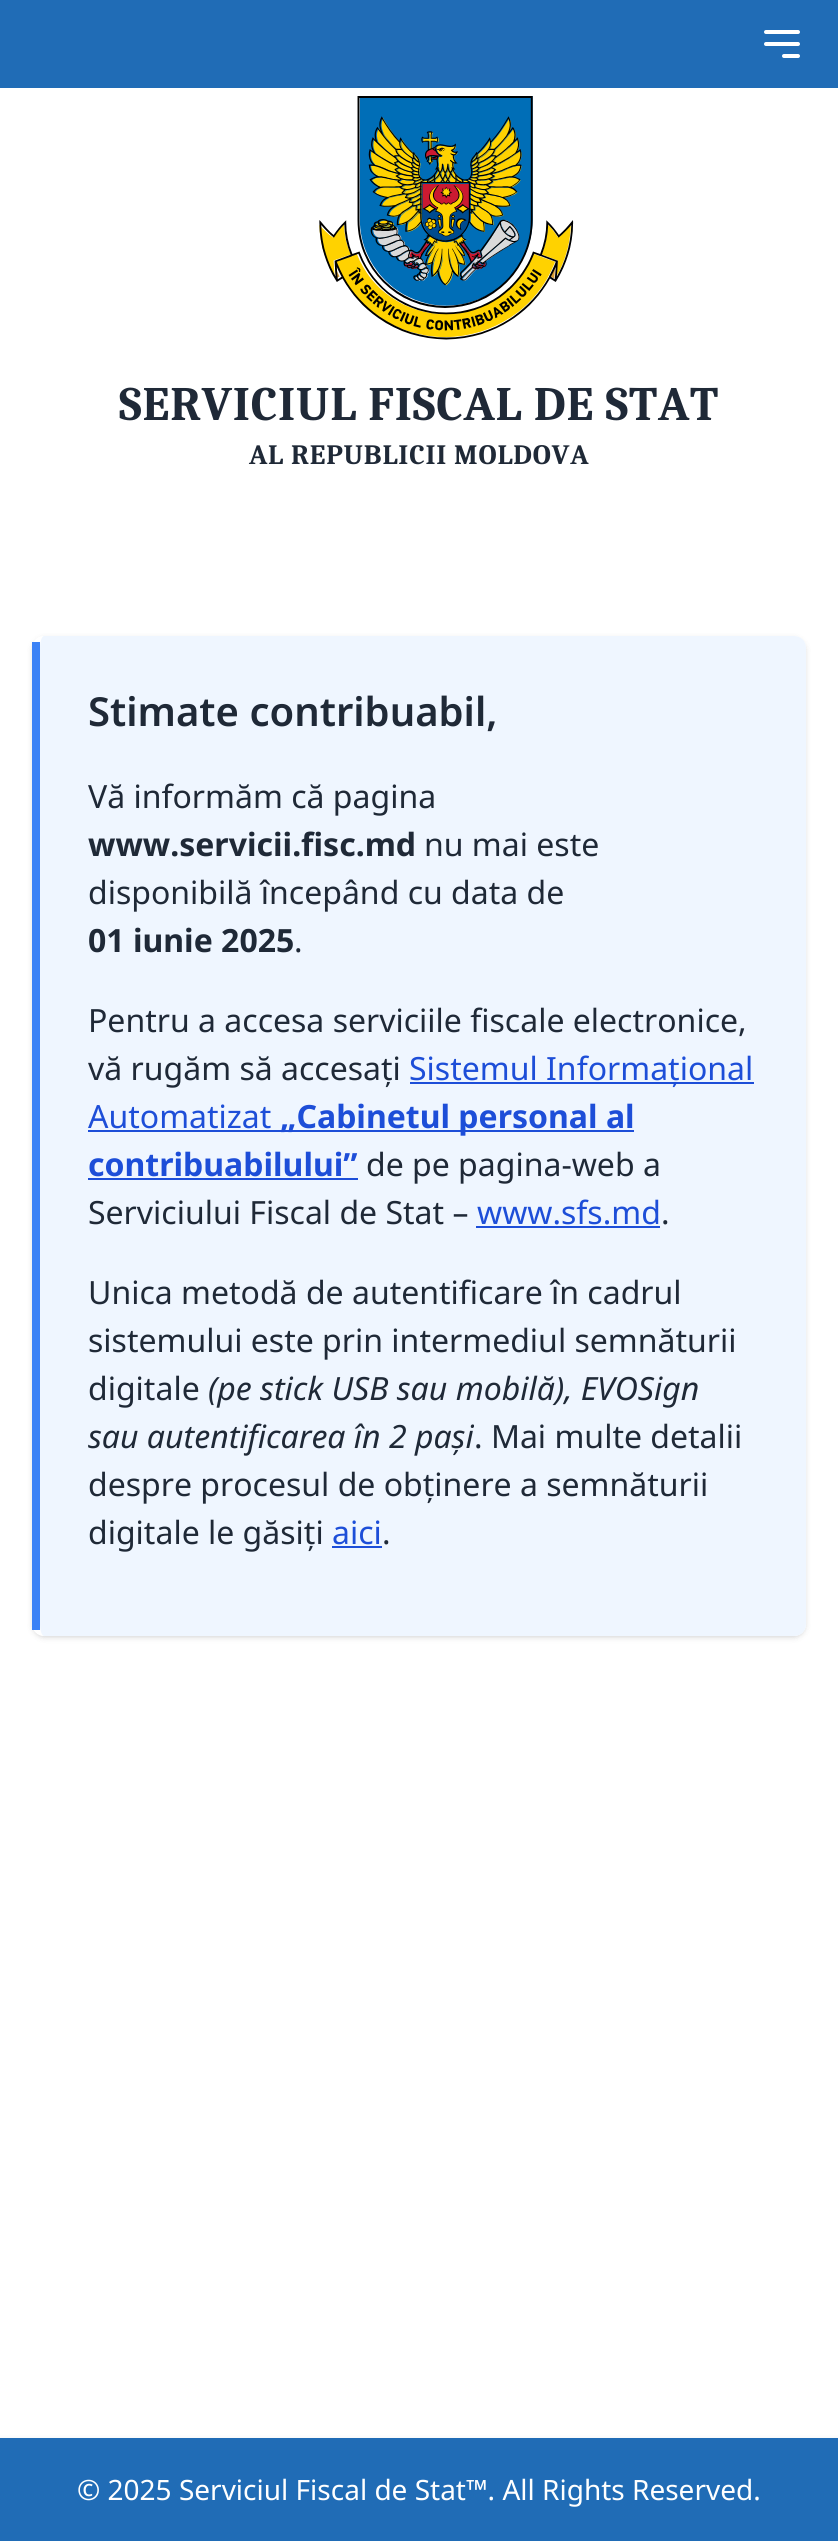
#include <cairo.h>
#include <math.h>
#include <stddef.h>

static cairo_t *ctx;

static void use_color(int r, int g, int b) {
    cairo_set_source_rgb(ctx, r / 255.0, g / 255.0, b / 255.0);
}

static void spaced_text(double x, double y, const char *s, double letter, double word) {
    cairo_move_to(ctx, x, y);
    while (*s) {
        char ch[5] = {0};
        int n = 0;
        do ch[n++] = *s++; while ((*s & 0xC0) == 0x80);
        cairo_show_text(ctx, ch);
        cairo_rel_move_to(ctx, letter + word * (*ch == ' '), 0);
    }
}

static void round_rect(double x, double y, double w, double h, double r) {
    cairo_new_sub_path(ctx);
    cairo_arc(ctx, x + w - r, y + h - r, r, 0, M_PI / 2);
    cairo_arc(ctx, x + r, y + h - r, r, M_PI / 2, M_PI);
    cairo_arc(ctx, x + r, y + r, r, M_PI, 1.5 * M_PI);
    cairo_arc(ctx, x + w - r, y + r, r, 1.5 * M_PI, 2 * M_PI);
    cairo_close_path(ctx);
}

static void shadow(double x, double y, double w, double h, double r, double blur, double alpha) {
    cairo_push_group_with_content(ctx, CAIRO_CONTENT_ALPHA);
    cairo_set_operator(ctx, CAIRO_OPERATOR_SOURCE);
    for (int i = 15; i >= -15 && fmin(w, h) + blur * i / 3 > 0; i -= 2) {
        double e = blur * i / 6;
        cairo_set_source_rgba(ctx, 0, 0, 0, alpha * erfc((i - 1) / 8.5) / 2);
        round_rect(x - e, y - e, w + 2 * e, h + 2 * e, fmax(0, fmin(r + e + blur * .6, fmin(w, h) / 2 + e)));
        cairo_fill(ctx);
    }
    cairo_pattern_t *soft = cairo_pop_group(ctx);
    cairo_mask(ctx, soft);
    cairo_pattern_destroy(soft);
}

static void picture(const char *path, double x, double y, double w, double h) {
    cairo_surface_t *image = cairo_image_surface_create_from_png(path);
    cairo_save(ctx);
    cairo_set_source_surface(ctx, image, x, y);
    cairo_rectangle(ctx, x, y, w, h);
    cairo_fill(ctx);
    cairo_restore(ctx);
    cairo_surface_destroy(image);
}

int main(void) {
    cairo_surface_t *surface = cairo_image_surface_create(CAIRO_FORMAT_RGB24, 838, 2541);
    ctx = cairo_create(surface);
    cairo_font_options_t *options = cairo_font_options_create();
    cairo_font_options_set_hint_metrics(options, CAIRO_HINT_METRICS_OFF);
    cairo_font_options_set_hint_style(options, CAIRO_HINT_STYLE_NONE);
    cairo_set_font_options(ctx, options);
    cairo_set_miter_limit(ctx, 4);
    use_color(255, 255, 255);
    cairo_paint(ctx);
    use_color(32, 108, 182);
    cairo_rectangle(ctx, 0, 0, 838, 88);
    cairo_fill(ctx);
    cairo_new_path(ctx);
    cairo_move_to(ctx, 766, 32);
    cairo_line_to(ctx, 798, 32);
    cairo_move_to(ctx, 766, 44);
    cairo_line_to(ctx, 798, 44);
    cairo_move_to(ctx, 784, 56);
    cairo_line_to(ctx, 798, 56);
    use_color(255, 255, 255);
    cairo_set_line_width(ctx, 4);
    cairo_set_line_cap(ctx, CAIRO_LINE_CAP_ROUND);
    cairo_set_line_join(ctx, CAIRO_LINE_JOIN_ROUND);
    cairo_stroke(ctx);
    picture("img1.png", 319, 96, 255, 244);
    cairo_select_font_face(ctx, "Caladea", CAIRO_FONT_SLANT_NORMAL, CAIRO_FONT_WEIGHT_BOLD);
    cairo_set_font_size(ctx, 48);
    use_color(31, 41, 55);
    spaced_text(119, 420, "SERVICIUL FISCAL DE STAT", 0.8, 0);
    cairo_set_font_size(ctx, 28);
    spaced_text(249, 464, "AL REPUBLICII MOLDOVA", 0.8, 0);
    cairo_save(ctx);
    cairo_set_fill_rule(ctx, CAIRO_FILL_RULE_EVEN_ODD);
    cairo_new_path(ctx);
    cairo_move_to(ctx, 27, 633);
    cairo_line_to(ctx, 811, 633);
    cairo_line_to(ctx, 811, 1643);
    cairo_line_to(ctx, 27, 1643);
    cairo_close_path(ctx);
    cairo_move_to(ctx, 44, 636);
    cairo_line_to(ctx, 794, 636);
    cairo_curve_to(ctx, 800.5, 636, 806, 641.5, 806, 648);
    cairo_line_to(ctx, 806, 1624);
    cairo_curve_to(ctx, 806, 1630.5, 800.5, 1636, 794, 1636);
    cairo_line_to(ctx, 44, 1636);
    cairo_curve_to(ctx, 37.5, 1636, 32, 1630.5, 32, 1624);
    cairo_line_to(ctx, 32, 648);
    cairo_curve_to(ctx, 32, 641.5, 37.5, 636, 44, 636);
    cairo_close_path(ctx);
    cairo_clip(ctx);
    use_color(0, 0, 0);
    shadow(34, 640, 770, 996, 10, 2, 0.1);
    cairo_restore(ctx);
    cairo_save(ctx);
    cairo_set_fill_rule(ctx, CAIRO_FILL_RULE_EVEN_ODD);
    cairo_new_path(ctx);
    cairo_move_to(ctx, 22, 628);
    cairo_line_to(ctx, 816, 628);
    cairo_line_to(ctx, 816, 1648);
    cairo_line_to(ctx, 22, 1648);
    cairo_close_path(ctx);
    cairo_move_to(ctx, 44, 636);
    cairo_line_to(ctx, 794, 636);
    cairo_curve_to(ctx, 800.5, 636, 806, 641.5, 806, 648);
    cairo_line_to(ctx, 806, 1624);
    cairo_curve_to(ctx, 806, 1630.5, 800.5, 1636, 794, 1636);
    cairo_line_to(ctx, 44, 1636);
    cairo_curve_to(ctx, 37.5, 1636, 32, 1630.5, 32, 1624);
    cairo_line_to(ctx, 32, 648);
    cairo_curve_to(ctx, 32, 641.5, 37.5, 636, 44, 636);
    cairo_close_path(ctx);
    cairo_clip(ctx);
    use_color(0, 0, 0);
    shadow(32, 638, 774, 1000, 12, 3, 0.1);
    cairo_restore(ctx);
    use_color(239, 246, 255);
    cairo_new_path(ctx);
    cairo_move_to(ctx, 44, 636);
    cairo_line_to(ctx, 794, 636);
    cairo_curve_to(ctx, 801, 636, 806, 641, 806, 648);
    cairo_line_to(ctx, 806, 1624);
    cairo_curve_to(ctx, 806, 1631, 801, 1636, 794, 1636);
    cairo_line_to(ctx, 44, 1636);
    cairo_curve_to(ctx, 42, 1636, 40, 1631, 40, 1624);
    cairo_line_to(ctx, 40, 648);
    cairo_curve_to(ctx, 40, 641, 42, 636, 44, 636);
    cairo_close_path(ctx);
    cairo_fill(ctx);
    use_color(59, 130, 246);
    cairo_rectangle(ctx, 32, 642, 8, 988);
    cairo_fill(ctx);
    cairo_select_font_face(ctx, "Noto Sans SemiBold", CAIRO_FONT_SLANT_NORMAL, CAIRO_FONT_WEIGHT_NORMAL);
    cairo_set_font_size(ctx, 40);
    use_color(31, 41, 55);
    cairo_move_to(ctx, 88, 726);
    cairo_show_text(ctx, "Stimate contribuabil,");
    cairo_select_font_face(ctx, "Noto Sans", CAIRO_FONT_SLANT_NORMAL, CAIRO_FONT_WEIGHT_NORMAL);
    cairo_set_font_size(ctx, 32);
    cairo_move_to(ctx, 88, 808);
    cairo_show_text(ctx, "Vă informăm că pagina");
    cairo_select_font_face(ctx, "Noto Sans", CAIRO_FONT_SLANT_NORMAL, CAIRO_FONT_WEIGHT_BOLD);
    cairo_move_to(ctx, 88, 856);
    cairo_show_text(ctx, "www.servicii.fisc.md");
    cairo_select_font_face(ctx, "Noto Sans", CAIRO_FONT_SLANT_NORMAL, CAIRO_FONT_WEIGHT_NORMAL);
    cairo_move_to(ctx, 424, 856);
    cairo_show_text(ctx, "nu mai este");
    cairo_move_to(ctx, 88, 904);
    cairo_show_text(ctx, "disponibilă începând cu data de");
    cairo_select_font_face(ctx, "Noto Sans", CAIRO_FONT_SLANT_NORMAL, CAIRO_FONT_WEIGHT_BOLD);
    cairo_move_to(ctx, 88, 952);
    cairo_show_text(ctx, "01 iunie 2025");
    cairo_select_font_face(ctx, "Noto Sans", CAIRO_FONT_SLANT_NORMAL, CAIRO_FONT_WEIGHT_NORMAL);
    cairo_move_to(ctx, 294, 952);
    cairo_show_text(ctx, ".");
    cairo_move_to(ctx, 88, 1032);
    cairo_show_text(ctx, "Pentru a accesa serviciile fiscale electronice,");
    cairo_move_to(ctx, 88, 1080);
    cairo_show_text(ctx, "vă rugăm să accesați");
    use_color(29, 78, 216);
    cairo_rectangle(ctx, 410, 1082, 344, 2);
    cairo_fill(ctx);
    cairo_move_to(ctx, 409, 1080);
    cairo_show_text(ctx, "Sistemul Informațional");
    cairo_move_to(ctx, 88, 1128);
    cairo_show_text(ctx, "Automatizat");
    cairo_rectangle(ctx, 88, 1130, 546, 2);
    cairo_fill(ctx);
    cairo_select_font_face(ctx, "Noto Sans", CAIRO_FONT_SLANT_NORMAL, CAIRO_FONT_WEIGHT_BOLD);
    cairo_move_to(ctx, 280, 1128);
    cairo_show_text(ctx, "„Cabinetul personal al");
    cairo_move_to(ctx, 88, 1176);
    cairo_show_text(ctx, "contribuabilului”");
    cairo_rectangle(ctx, 88, 1178, 270, 2);
    cairo_fill(ctx);
    cairo_select_font_face(ctx, "Noto Sans", CAIRO_FONT_SLANT_NORMAL, CAIRO_FONT_WEIGHT_NORMAL);
    use_color(31, 41, 55);
    cairo_move_to(ctx, 366, 1176);
    cairo_show_text(ctx, "de pe pagina-web a");
    cairo_move_to(ctx, 88, 1224);
    cairo_show_text(ctx, "Serviciului Fiscal de Stat –");
    use_color(29, 78, 216);
    cairo_move_to(ctx, 477, 1224);
    cairo_show_text(ctx, "www.sfs.md");
    cairo_rectangle(ctx, 476, 1226, 184, 2);
    cairo_fill(ctx);
    use_color(31, 41, 55);
    cairo_move_to(ctx, 661, 1224);
    cairo_show_text(ctx, ".");
    cairo_move_to(ctx, 88, 1304);
    cairo_show_text(ctx, "Unica metodă de autentificare în cadrul");
    cairo_move_to(ctx, 88, 1352);
    cairo_show_text(ctx, "sistemului este prin intermediul semnăturii");
    cairo_move_to(ctx, 88, 1400);
    cairo_show_text(ctx, "digitale");
    cairo_select_font_face(ctx, "Noto Sans", CAIRO_FONT_SLANT_ITALIC, CAIRO_FONT_WEIGHT_NORMAL);
    cairo_move_to(ctx, 208, 1400);
    cairo_show_text(ctx, "(pe stick USB sau mobilă), EVOSign");
    cairo_move_to(ctx, 88, 1448);
    cairo_show_text(ctx, "sau autentificarea în 2 pași");
    cairo_select_font_face(ctx, "Noto Sans", CAIRO_FONT_SLANT_NORMAL, CAIRO_FONT_WEIGHT_NORMAL);
    cairo_move_to(ctx, 474, 1448);
    cairo_show_text(ctx, ". Mai multe detalii");
    cairo_move_to(ctx, 88, 1496);
    cairo_show_text(ctx, "despre procesul de obținere a semnăturii");
    cairo_move_to(ctx, 88, 1544);
    cairo_show_text(ctx, "digitale le găsiți");
    use_color(29, 78, 216);
    cairo_move_to(ctx, 332, 1544);
    cairo_show_text(ctx, "aici");
    cairo_rectangle(ctx, 332, 1546, 50, 2);
    cairo_fill(ctx);
    use_color(31, 41, 55);
    cairo_move_to(ctx, 382, 1544);
    cairo_show_text(ctx, ".");
    use_color(0, 0, 0);
    shadow(0, 2440, 838, 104, 0, 3, 0.1);
    use_color(32, 108, 182);
    cairo_rectangle(ctx, 0, 2438, 838, 103);
    cairo_fill(ctx);
    cairo_set_font_size(ctx, 28);
    use_color(255, 255, 255);
    cairo_move_to(ctx, 77, 2500);
    cairo_show_text(ctx, "© 2025 Serviciul Fiscal de Stat™. All Rights Reserved.");
    cairo_surface_write_to_png(surface, "result.png");
    cairo_font_options_destroy(options);
    cairo_destroy(ctx);
    cairo_surface_destroy(surface);
    return 0;
}
